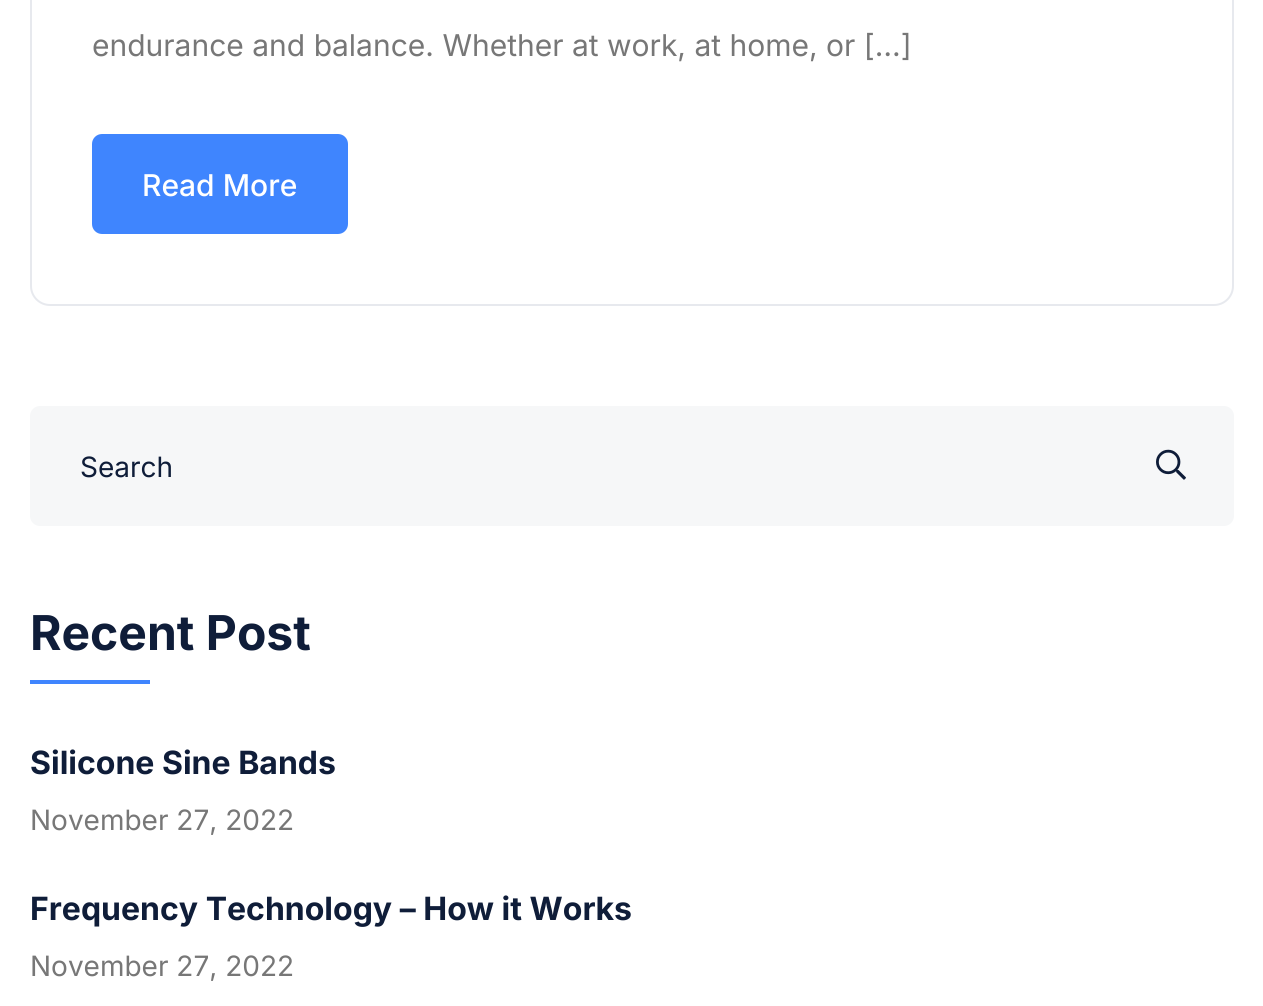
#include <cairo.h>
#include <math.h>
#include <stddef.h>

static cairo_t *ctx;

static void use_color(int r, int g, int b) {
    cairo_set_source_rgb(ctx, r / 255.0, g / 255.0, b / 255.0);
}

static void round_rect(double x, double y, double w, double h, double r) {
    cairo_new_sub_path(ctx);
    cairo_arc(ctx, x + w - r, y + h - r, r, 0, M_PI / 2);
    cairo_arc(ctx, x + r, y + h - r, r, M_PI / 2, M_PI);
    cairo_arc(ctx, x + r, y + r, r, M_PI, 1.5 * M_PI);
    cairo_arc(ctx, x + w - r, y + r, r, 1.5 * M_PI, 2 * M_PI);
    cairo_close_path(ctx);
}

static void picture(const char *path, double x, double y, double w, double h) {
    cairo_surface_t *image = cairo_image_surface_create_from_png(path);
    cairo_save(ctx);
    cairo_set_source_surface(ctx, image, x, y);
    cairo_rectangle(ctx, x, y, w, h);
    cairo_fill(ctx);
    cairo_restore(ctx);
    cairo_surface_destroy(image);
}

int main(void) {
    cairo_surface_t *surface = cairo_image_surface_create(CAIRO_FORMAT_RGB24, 1263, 1006);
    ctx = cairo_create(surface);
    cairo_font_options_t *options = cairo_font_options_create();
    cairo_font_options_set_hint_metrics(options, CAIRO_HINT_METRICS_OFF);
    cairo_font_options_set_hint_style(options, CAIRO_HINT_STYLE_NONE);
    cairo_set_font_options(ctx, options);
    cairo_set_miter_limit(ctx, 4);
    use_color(255, 255, 255);
    cairo_paint(ctx);
    round_rect(31, -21, 1202, 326, 19);
    use_color(231, 233, 238);
    cairo_stroke(ctx);
    cairo_select_font_face(ctx, "Inter", CAIRO_FONT_SLANT_NORMAL, CAIRO_FONT_WEIGHT_NORMAL);
    cairo_set_font_size(ctx, 30);
    use_color(119, 119, 119);
    cairo_move_to(ctx, 92, 56);
    cairo_show_text(ctx, "endurance and balance. Whether at work, at home, or […]");
    use_color(63, 133, 254);
    round_rect(92, 134, 256, 100, 10);
    cairo_fill(ctx);
    cairo_select_font_face(ctx, "Inter Medium", CAIRO_FONT_SLANT_NORMAL, CAIRO_FONT_WEIGHT_NORMAL);
    use_color(255, 255, 255);
    cairo_move_to(ctx, 142, 196);
    cairo_show_text(ctx, "Read More");
    use_color(246, 247, 248);
    round_rect(30, 406, 1204, 120, 10);
    cairo_fill(ctx);
    cairo_select_font_face(ctx, "Inter", CAIRO_FONT_SLANT_NORMAL, CAIRO_FONT_WEIGHT_NORMAL);
    cairo_set_font_size(ctx, 28);
    use_color(15, 29, 57);
    cairo_move_to(ctx, 80, 477);
    cairo_show_text(ctx, "Search");
    picture("img1.png", 1156, 449, 30, 31);
    cairo_select_font_face(ctx, "Inter", CAIRO_FONT_SLANT_NORMAL, CAIRO_FONT_WEIGHT_BOLD);
    cairo_set_font_size(ctx, 48);
    cairo_move_to(ctx, 30, 650);
    cairo_show_text(ctx, "Recent Post");
    use_color(63, 133, 254);
    cairo_rectangle(ctx, 30, 680, 120, 4);
    cairo_fill(ctx);
    cairo_set_font_size(ctx, 32);
    use_color(15, 29, 57);
    cairo_move_to(ctx, 30, 774);
    cairo_show_text(ctx, "Silicone Sine Bands");
    cairo_select_font_face(ctx, "Inter", CAIRO_FONT_SLANT_NORMAL, CAIRO_FONT_WEIGHT_NORMAL);
    cairo_set_font_size(ctx, 28);
    use_color(119, 119, 119);
    cairo_move_to(ctx, 30, 830);
    cairo_show_text(ctx, "November 27, 2022");
    cairo_select_font_face(ctx, "Inter", CAIRO_FONT_SLANT_NORMAL, CAIRO_FONT_WEIGHT_BOLD);
    cairo_set_font_size(ctx, 32);
    use_color(15, 29, 57);
    cairo_move_to(ctx, 30, 920);
    cairo_show_text(ctx, "Frequency Technology – How it Works");
    cairo_select_font_face(ctx, "Inter", CAIRO_FONT_SLANT_NORMAL, CAIRO_FONT_WEIGHT_NORMAL);
    cairo_set_font_size(ctx, 28);
    use_color(119, 119, 119);
    cairo_move_to(ctx, 30, 976);
    cairo_show_text(ctx, "November 27, 2022");
    cairo_surface_write_to_png(surface, "result.png");
    cairo_font_options_destroy(options);
    cairo_destroy(ctx);
    cairo_surface_destroy(surface);
    return 0;
}
